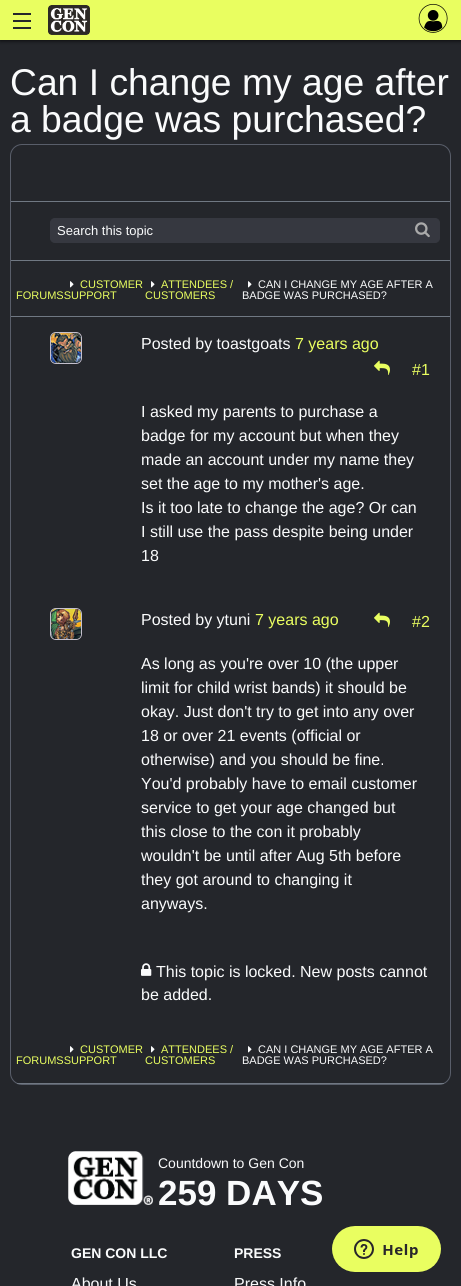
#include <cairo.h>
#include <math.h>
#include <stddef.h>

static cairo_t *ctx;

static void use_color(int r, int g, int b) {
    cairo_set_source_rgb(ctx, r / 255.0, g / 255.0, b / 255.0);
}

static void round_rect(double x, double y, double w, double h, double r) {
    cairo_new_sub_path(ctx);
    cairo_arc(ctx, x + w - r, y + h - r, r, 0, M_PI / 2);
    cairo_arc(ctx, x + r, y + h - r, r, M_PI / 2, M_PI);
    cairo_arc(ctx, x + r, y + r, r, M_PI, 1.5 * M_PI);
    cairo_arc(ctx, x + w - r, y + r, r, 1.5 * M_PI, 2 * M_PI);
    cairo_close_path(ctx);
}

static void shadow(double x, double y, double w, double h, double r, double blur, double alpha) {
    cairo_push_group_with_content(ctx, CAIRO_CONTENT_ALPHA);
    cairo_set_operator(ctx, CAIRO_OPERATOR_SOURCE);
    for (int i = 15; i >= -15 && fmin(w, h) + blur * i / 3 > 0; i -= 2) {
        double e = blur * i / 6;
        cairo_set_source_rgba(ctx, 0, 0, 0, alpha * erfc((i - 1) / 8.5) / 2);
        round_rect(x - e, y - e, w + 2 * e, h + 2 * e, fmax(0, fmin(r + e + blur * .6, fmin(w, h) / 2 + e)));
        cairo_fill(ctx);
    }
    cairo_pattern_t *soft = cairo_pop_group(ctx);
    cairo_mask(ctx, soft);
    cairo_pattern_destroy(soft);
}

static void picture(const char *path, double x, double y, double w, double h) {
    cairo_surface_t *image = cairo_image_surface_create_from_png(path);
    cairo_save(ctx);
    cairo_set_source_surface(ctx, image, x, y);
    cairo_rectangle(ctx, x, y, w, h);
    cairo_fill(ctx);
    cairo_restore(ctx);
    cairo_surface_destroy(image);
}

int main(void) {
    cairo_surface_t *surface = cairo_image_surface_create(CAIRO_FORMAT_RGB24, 461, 1286);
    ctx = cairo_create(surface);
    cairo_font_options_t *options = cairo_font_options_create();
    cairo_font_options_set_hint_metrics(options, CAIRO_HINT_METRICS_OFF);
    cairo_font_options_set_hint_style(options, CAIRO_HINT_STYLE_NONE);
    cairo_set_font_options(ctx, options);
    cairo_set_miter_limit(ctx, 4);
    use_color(36, 38, 43);
    cairo_paint(ctx);
    use_color(233, 254, 96);
    cairo_rectangle(ctx, 0, 0, 461, 40);
    cairo_fill(ctx);
    cairo_save(ctx);
    cairo_rectangle(ctx, 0, 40, 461, 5);
    cairo_clip(ctx);
    use_color(0, 0, 0);
    shadow(0, 0, 461, 40, 0, 2.5, 1);
    cairo_restore(ctx);
    use_color(36, 38, 43);
    cairo_rectangle(ctx, 13, 27, 18, 2);
    cairo_fill(ctx);
    cairo_rectangle(ctx, 13, 20, 18, 2);
    cairo_fill(ctx);
    cairo_rectangle(ctx, 13, 13, 18, 2);
    cairo_fill(ctx);
    picture("img1.png", 48, 5, 42, 30);
    picture("img2.png", 418, 3, 30, 30);
    cairo_select_font_face(ctx, "Liberation Sans", CAIRO_FONT_SLANT_NORMAL, CAIRO_FONT_WEIGHT_NORMAL);
    cairo_set_font_size(ctx, 37.25);
    use_color(250, 251, 252);
    cairo_move_to(ctx, 10, 95);
    cairo_show_text(ctx, "Can I change my age after");
    cairo_move_to(ctx, 10, 132);
    cairo_show_text(ctx, "a badge was purchased?");
    round_rect(10.5, 144.5, 440, 940, 11.5);
    use_color(89, 94, 106);
    cairo_set_line_width(ctx, 1);
    cairo_stroke(ctx);
    use_color(112, 120, 131);
    cairo_rectangle(ctx, 11, 201, 439, 1);
    cairo_fill(ctx);
    cairo_rectangle(ctx, 11, 260, 439, 1);
    cairo_fill(ctx);
    use_color(54, 56, 64);
    round_rect(50.5, 218.5, 389, 24, 4.5);
    cairo_fill_preserve(ctx);
    cairo_stroke(ctx);
    cairo_set_font_size(ctx, 13);
    use_color(250, 251, 252);
    cairo_move_to(ctx, 57, 235);
    cairo_show_text(ctx, "Search this topic");
    picture("img3.png", 415, 222, 15, 16);
    use_color(112, 120, 131);
    cairo_rectangle(ctx, 11, 316, 439, 1);
    cairo_fill(ctx);
    picture("img4.png", 70, 281, 4, 7);
    cairo_set_font_size(ctx, 11);
    use_color(233, 254, 96);
    cairo_move_to(ctx, 80, 288);
    cairo_show_text(ctx, "CUSTOMER");
    picture("img4.png", 151, 281, 4, 7);
    cairo_move_to(ctx, 161, 288);
    cairo_show_text(ctx, "ATTENDEES /");
    cairo_move_to(ctx, 145, 299);
    cairo_show_text(ctx, "CUSTOMERS");
    picture("img4.png", 248, 281, 4, 7);
    use_color(250, 251, 252);
    cairo_move_to(ctx, 258, 288);
    cairo_show_text(ctx, "CAN I CHANGE MY AGE AFTER A");
    cairo_move_to(ctx, 242, 299);
    cairo_show_text(ctx, "BADGE WAS PURCHASED?");
    use_color(233, 254, 96);
    cairo_move_to(ctx, 16, 299);
    cairo_show_text(ctx, "FORUMSSUPPORT");
    round_rect(50.5, 332.5, 31, 31, 5.5);
    use_color(196, 191, 204);
    cairo_stroke(ctx);
    picture("img5.png", 51, 333, 30, 30);
    cairo_set_font_size(ctx, 16);
    use_color(250, 251, 252);
    cairo_move_to(ctx, 141, 349);
    cairo_show_text(ctx, "Posted by toastgoats");
    use_color(233, 254, 96);
    cairo_move_to(ctx, 295, 349);
    cairo_show_text(ctx, "7 years ago");
    picture("img6.png", 374, 360, 16, 15);
    cairo_move_to(ctx, 412, 375);
    cairo_show_text(ctx, "#1");
    use_color(250, 251, 252);
    cairo_move_to(ctx, 141, 417);
    cairo_show_text(ctx, "I asked my parents to purchase a");
    cairo_move_to(ctx, 141, 441);
    cairo_show_text(ctx, "badge for my account but when they");
    cairo_move_to(ctx, 141, 465);
    cairo_show_text(ctx, "made an account under my name they");
    cairo_move_to(ctx, 141, 489);
    cairo_show_text(ctx, "set the age to my mother's age.");
    cairo_move_to(ctx, 141, 513);
    cairo_show_text(ctx, "Is it too late to change the age? Or can");
    cairo_move_to(ctx, 141, 537);
    cairo_show_text(ctx, "I still use the pass despite being under");
    cairo_move_to(ctx, 141, 561);
    cairo_show_text(ctx, "18");
    round_rect(50.5, 608.5, 31, 31, 5.5);
    use_color(196, 191, 204);
    cairo_stroke(ctx);
    picture("img7.png", 51, 609, 30, 30);
    use_color(250, 251, 252);
    cairo_move_to(ctx, 141, 625);
    cairo_show_text(ctx, "Posted by ytuni");
    use_color(233, 254, 96);
    cairo_move_to(ctx, 255, 625);
    cairo_show_text(ctx, "7 years ago");
    picture("img6.png", 374, 612, 16, 15);
    cairo_move_to(ctx, 412, 627);
    cairo_show_text(ctx, "#2");
    use_color(250, 251, 252);
    cairo_move_to(ctx, 141, 669);
    cairo_show_text(ctx, "As long as you're over 10 (the upper");
    cairo_move_to(ctx, 141, 693);
    cairo_show_text(ctx, "limit for child wrist bands) it should be");
    cairo_move_to(ctx, 141, 717);
    cairo_show_text(ctx, "okay. Just don't try to get into any over");
    cairo_move_to(ctx, 141, 741);
    cairo_show_text(ctx, "18 or over 21 events (official or");
    cairo_move_to(ctx, 141, 765);
    cairo_show_text(ctx, "otherwise) and you should be fine.");
    cairo_move_to(ctx, 141, 789);
    cairo_show_text(ctx, "You'd probably have to email customer");
    cairo_move_to(ctx, 141, 813);
    cairo_show_text(ctx, "service to get your age changed but");
    cairo_move_to(ctx, 141, 837);
    cairo_show_text(ctx, "this close to the con it probably");
    cairo_move_to(ctx, 141, 861);
    cairo_show_text(ctx, "wouldn't be until after Aug 5th before");
    cairo_move_to(ctx, 141, 885);
    cairo_show_text(ctx, "they got around to changing it");
    cairo_move_to(ctx, 141, 909);
    cairo_show_text(ctx, "anyways.");
    picture("img8.png", 141, 963, 11, 13);
    cairo_move_to(ctx, 156, 977);
    cairo_show_text(ctx, "This topic is locked. New posts cannot");
    cairo_move_to(ctx, 141, 1000);
    cairo_show_text(ctx, "be added.");
    use_color(112, 120, 131);
    cairo_rectangle(ctx, 17, 1083, 427, 1);
    cairo_fill(ctx);
    picture("img4.png", 70, 1046, 4, 7);
    cairo_set_font_size(ctx, 11);
    use_color(233, 254, 96);
    cairo_move_to(ctx, 80, 1053);
    cairo_show_text(ctx, "CUSTOMER");
    picture("img4.png", 151, 1046, 4, 7);
    cairo_move_to(ctx, 161, 1053);
    cairo_show_text(ctx, "ATTENDEES /");
    cairo_move_to(ctx, 145, 1064);
    cairo_show_text(ctx, "CUSTOMERS");
    picture("img4.png", 248, 1046, 4, 7);
    use_color(250, 251, 252);
    cairo_move_to(ctx, 258, 1053);
    cairo_show_text(ctx, "CAN I CHANGE MY AGE AFTER A");
    cairo_move_to(ctx, 242, 1064);
    cairo_show_text(ctx, "BADGE WAS PURCHASED?");
    use_color(233, 254, 96);
    cairo_move_to(ctx, 16, 1064);
    cairo_show_text(ctx, "FORUMSSUPPORT");
    picture("img9.png", 68, 1151, 85, 54);
    cairo_set_font_size(ctx, 14);
    use_color(250, 251, 252);
    cairo_move_to(ctx, 158, 1168);
    cairo_show_text(ctx, "Countdown to Gen Con");
    cairo_select_font_face(ctx, "Liberation Sans", CAIRO_FONT_SLANT_NORMAL, CAIRO_FONT_WEIGHT_BOLD);
    cairo_set_font_size(ctx, 35);
    cairo_move_to(ctx, 158, 1205);
    cairo_show_text(ctx, "259 DAYS");
    cairo_set_font_size(ctx, 14);
    cairo_move_to(ctx, 71, 1258);
    cairo_show_text(ctx, "GEN CON LLC");
    cairo_select_font_face(ctx, "Liberation Sans", CAIRO_FONT_SLANT_NORMAL, CAIRO_FONT_WEIGHT_NORMAL);
    cairo_set_font_size(ctx, 16);
    cairo_move_to(ctx, 71, 1289);
    cairo_show_text(ctx, "About Us");
    cairo_select_font_face(ctx, "Liberation Sans", CAIRO_FONT_SLANT_NORMAL, CAIRO_FONT_WEIGHT_BOLD);
    cairo_set_font_size(ctx, 14);
    cairo_move_to(ctx, 234, 1258);
    cairo_show_text(ctx, "PRESS");
    cairo_select_font_face(ctx, "Liberation Sans", CAIRO_FONT_SLANT_NORMAL, CAIRO_FONT_WEIGHT_NORMAL);
    cairo_set_font_size(ctx, 16);
    cairo_move_to(ctx, 234, 1289);
    cairo_show_text(ctx, "Press Info");
    picture("img10.png", 332, 1226, 109, 46);
    cairo_surface_write_to_png(surface, "result.png");
    cairo_font_options_destroy(options);
    cairo_destroy(ctx);
    cairo_surface_destroy(surface);
    return 0;
}
